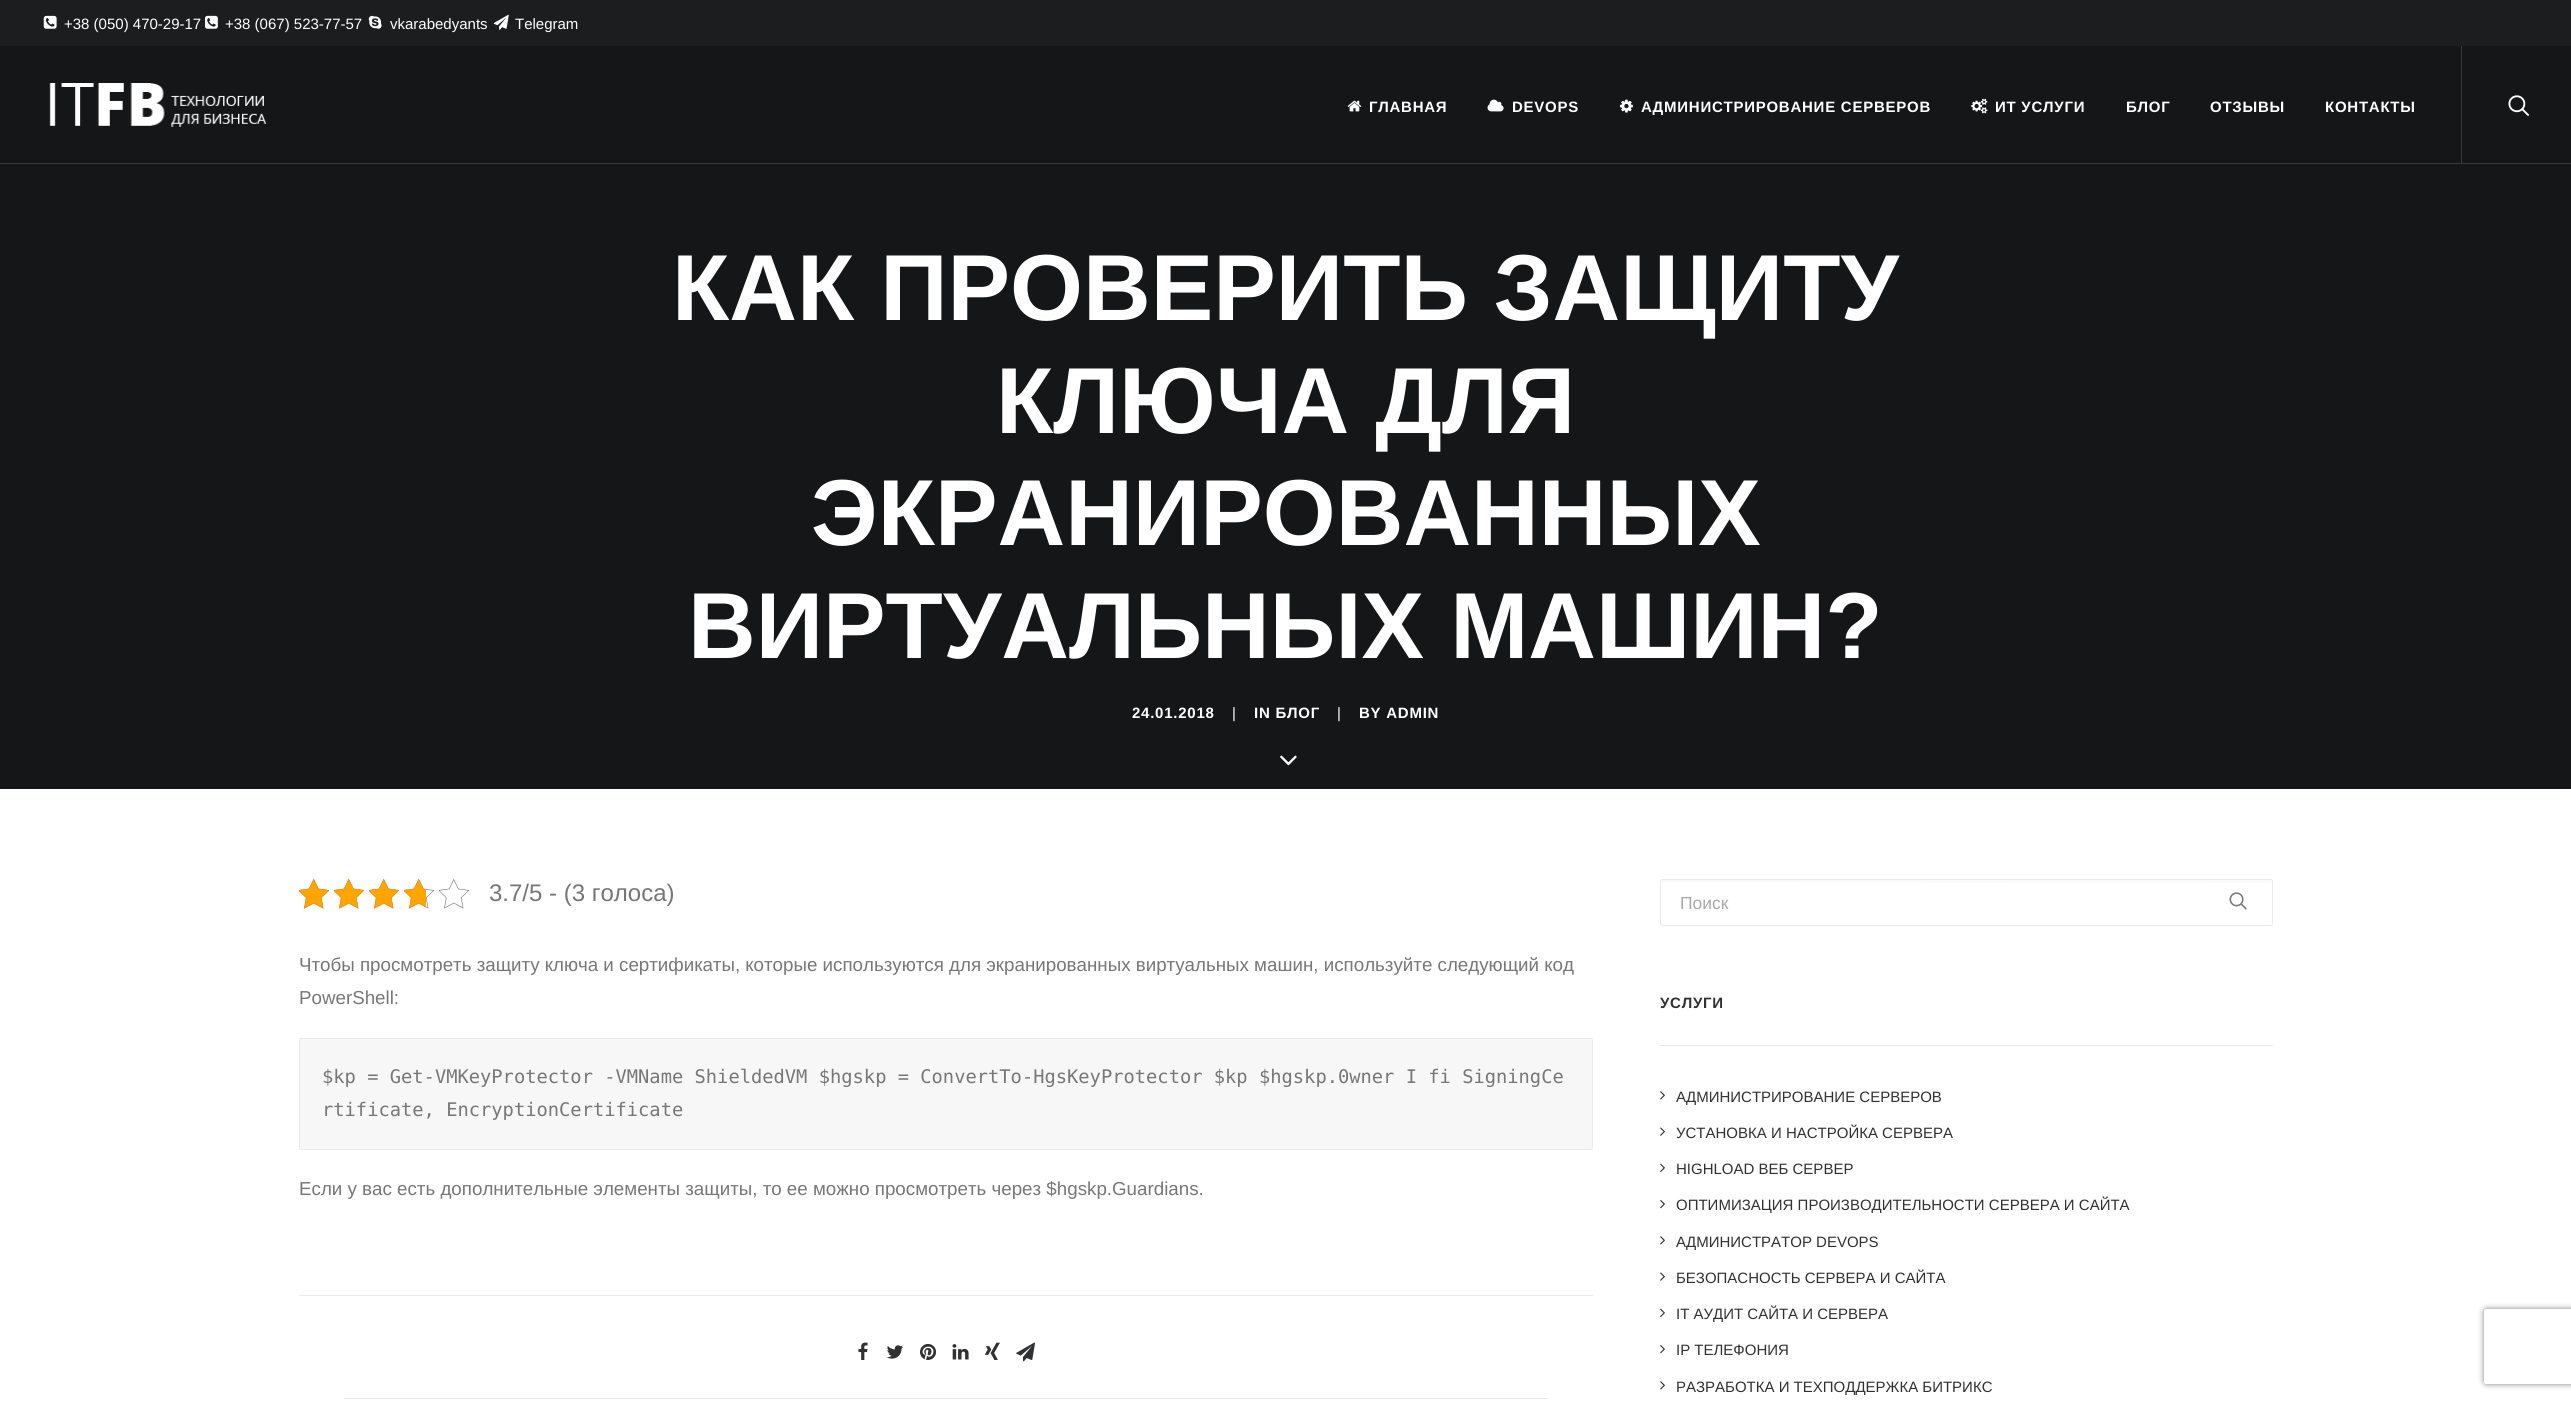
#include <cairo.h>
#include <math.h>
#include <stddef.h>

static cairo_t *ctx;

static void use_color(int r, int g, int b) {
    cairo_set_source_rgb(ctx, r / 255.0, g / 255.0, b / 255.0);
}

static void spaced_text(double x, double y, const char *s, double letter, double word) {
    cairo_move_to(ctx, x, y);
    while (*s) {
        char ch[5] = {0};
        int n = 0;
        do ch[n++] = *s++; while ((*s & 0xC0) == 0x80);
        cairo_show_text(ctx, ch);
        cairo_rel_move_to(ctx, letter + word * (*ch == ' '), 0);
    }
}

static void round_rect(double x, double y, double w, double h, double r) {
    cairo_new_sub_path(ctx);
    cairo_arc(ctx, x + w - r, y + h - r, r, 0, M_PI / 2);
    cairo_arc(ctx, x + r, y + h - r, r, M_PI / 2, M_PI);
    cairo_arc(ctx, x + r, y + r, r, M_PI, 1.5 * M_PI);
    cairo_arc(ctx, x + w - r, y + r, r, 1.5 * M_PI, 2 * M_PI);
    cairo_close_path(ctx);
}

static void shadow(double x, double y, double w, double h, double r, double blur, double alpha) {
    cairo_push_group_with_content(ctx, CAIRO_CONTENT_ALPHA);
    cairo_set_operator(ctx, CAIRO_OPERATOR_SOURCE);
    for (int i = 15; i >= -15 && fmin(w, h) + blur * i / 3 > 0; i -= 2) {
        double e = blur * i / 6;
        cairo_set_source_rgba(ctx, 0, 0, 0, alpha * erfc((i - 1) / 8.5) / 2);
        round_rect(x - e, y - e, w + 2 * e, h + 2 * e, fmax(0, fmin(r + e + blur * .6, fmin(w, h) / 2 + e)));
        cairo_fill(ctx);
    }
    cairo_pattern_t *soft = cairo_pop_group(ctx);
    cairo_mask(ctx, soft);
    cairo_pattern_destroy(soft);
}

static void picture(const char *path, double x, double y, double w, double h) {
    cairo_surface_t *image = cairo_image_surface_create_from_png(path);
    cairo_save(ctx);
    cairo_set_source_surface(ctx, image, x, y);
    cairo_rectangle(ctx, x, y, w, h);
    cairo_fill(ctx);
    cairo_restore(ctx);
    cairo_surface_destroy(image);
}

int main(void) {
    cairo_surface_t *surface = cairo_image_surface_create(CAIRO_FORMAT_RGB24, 2571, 1401);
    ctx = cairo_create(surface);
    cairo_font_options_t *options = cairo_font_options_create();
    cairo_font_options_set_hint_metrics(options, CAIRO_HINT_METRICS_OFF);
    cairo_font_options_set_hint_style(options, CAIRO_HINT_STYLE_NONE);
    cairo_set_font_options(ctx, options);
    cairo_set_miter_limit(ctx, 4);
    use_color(20, 22, 24);
    cairo_paint(ctx);
    use_color(27, 29, 31);
    cairo_rectangle(ctx, 0, 0, 2571, 46);
    cairo_fill(ctx);
    picture("img1.png", 43, 15, 14, 14);
    cairo_select_font_face(ctx, "Liberation Sans", CAIRO_FONT_SLANT_NORMAL, CAIRO_FONT_WEIGHT_NORMAL);
    cairo_set_font_size(ctx, 15);
    use_color(255, 255, 255);
    cairo_move_to(ctx, 64, 29);
    cairo_show_text(ctx, "+38 (050) 470-29-17");
    picture("img2.png", 205, 15, 13, 14);
    cairo_move_to(ctx, 225, 29);
    cairo_show_text(ctx, "+38 (067) 523-77-57");
    picture("img3.png", 368, 15, 14, 14);
    cairo_move_to(ctx, 390, 29);
    cairo_show_text(ctx, "vkarabedyants");
    picture("img4.png", 493, 14, 16, 16);
    cairo_move_to(ctx, 515, 29);
    cairo_show_text(ctx, "Telegram");
    use_color(55, 57, 59);
    cairo_rectangle(ctx, 0, 163, 2571, 1);
    cairo_fill(ctx);
    picture("img5.png", 49, 83, 218, 44);
    picture("img6.png", 1347, 100, 15, 12);
    cairo_select_font_face(ctx, "Liberation Sans", CAIRO_FONT_SLANT_NORMAL, CAIRO_FONT_WEIGHT_BOLD);
    use_color(255, 255, 255);
    spaced_text(1369, 112, "ГЛАВНАЯ", 0.75, 0);
    picture("img7.png", 1487, 99, 17, 13);
    spaced_text(1512, 112, "DEVOPS", 0.75, 0);
    picture("img8.png", 1620, 99, 13, 14);
    spaced_text(1641, 112, "АДМИНИСТРИРОВАНИЕ СЕРВЕРОВ", 0.75, 0);
    picture("img9.png", 1971, 98, 17, 16);
    spaced_text(1995, 112, "ИТ УСЛУГИ", 0.75, 0);
    spaced_text(2126, 112, "БЛОГ", 0.75, 0);
    spaced_text(2210, 112, "ОТЗЫВЫ", 0.75, 0);
    spaced_text(2325, 112, "КОНТАКТЫ", 0.75, 0);
    use_color(55, 57, 59);
    cairo_rectangle(ctx, 2461, 46, 1, 117);
    cairo_fill(ctx);
    picture("img10.png", 2508, 95, 21, 21);
    cairo_set_font_size(ctx, 93.75);
    use_color(255, 255, 255);
    cairo_move_to(ctx, 672, 320);
    cairo_show_text(ctx, "КАК ПРОВЕРИТЬ ЗАЩИТУ");
    cairo_move_to(ctx, 996, 433);
    cairo_show_text(ctx, "КЛЮЧА ДЛЯ");
    cairo_move_to(ctx, 811, 545);
    cairo_show_text(ctx, "ЭКРАНИРОВАННЫХ");
    cairo_move_to(ctx, 688, 658);
    cairo_show_text(ctx, "ВИРТУАЛЬНЫХ МАШИН?");
    cairo_set_font_size(ctx, 15);
    spaced_text(1132, 718, "24.01.2018", 0.75, 0);
    cairo_select_font_face(ctx, "Liberation Sans", CAIRO_FONT_SLANT_NORMAL, CAIRO_FONT_WEIGHT_NORMAL);
    spaced_text(1232, 718, "|", 0.75, 0);
    cairo_select_font_face(ctx, "Liberation Sans", CAIRO_FONT_SLANT_NORMAL, CAIRO_FONT_WEIGHT_BOLD);
    spaced_text(1254, 718, "IN БЛОГ", 0.75, 0);
    cairo_select_font_face(ctx, "Liberation Sans", CAIRO_FONT_SLANT_NORMAL, CAIRO_FONT_WEIGHT_NORMAL);
    spaced_text(1337, 718, "|", 0.75, 0);
    cairo_select_font_face(ctx, "Liberation Sans", CAIRO_FONT_SLANT_NORMAL, CAIRO_FONT_WEIGHT_BOLD);
    spaced_text(1359, 718, "BY ADMIN", 0.75, 0);
    picture("img11.png", 1280, 755, 17, 11);
    cairo_rectangle(ctx, 0, 789, 2571, 612);
    cairo_fill(ctx);
    picture("img12.png", 299, 879, 30, 30);
    picture("img12.png", 334, 879, 30, 30);
    picture("img12.png", 369, 879, 30, 30);
    picture("img12.png", 404, 879, 30, 30);
    picture("img12.png", 439, 879, 30, 30);
    picture("img13.png", 299, 879, 30, 30);
    picture("img13.png", 334, 879, 30, 30);
    picture("img13.png", 369, 879, 30, 30);
    picture("img14.png", 404, 879, 22, 30);
    cairo_select_font_face(ctx, "Liberation Sans", CAIRO_FONT_SLANT_NORMAL, CAIRO_FONT_WEIGHT_NORMAL);
    cairo_set_font_size(ctx, 24);
    use_color(119, 119, 119);
    cairo_move_to(ctx, 489, 901);
    cairo_show_text(ctx, "3.7/5 - (3 голоса)");
    cairo_set_font_size(ctx, 18.75);
    cairo_move_to(ctx, 299, 971);
    cairo_show_text(ctx, "Чтобы просмотреть защиту ключа и сертификаты, которые используются для экранированных виртуальных машин, используйте следующий код");
    cairo_move_to(ctx, 299, 1004);
    cairo_show_text(ctx, "PowerShell:");
    use_color(247, 247, 247);
    round_rect(299.5, 1038.5, 1293, 111, 2);
    cairo_fill_preserve(ctx);
    use_color(234, 234, 234);
    cairo_set_line_width(ctx, 1);
    cairo_stroke(ctx);
    cairo_select_font_face(ctx, "DejaVu Sans Mono", CAIRO_FONT_SLANT_NORMAL, CAIRO_FONT_WEIGHT_NORMAL);
    use_color(119, 119, 119);
    cairo_move_to(ctx, 322, 1083);
    cairo_show_text(ctx, "$kp = Get-VMKeyProtector -VMName ShieldedVM $hgskp = ConvertTo-HgsKeyProtector $kp $hgskp.0wner I fi SigningCe");
    cairo_move_to(ctx, 322, 1116);
    cairo_show_text(ctx, "rtificate, EncryptionCertificate");
    cairo_select_font_face(ctx, "Liberation Sans", CAIRO_FONT_SLANT_NORMAL, CAIRO_FONT_WEIGHT_NORMAL);
    cairo_move_to(ctx, 299, 1195);
    cairo_show_text(ctx, "Если у вас есть дополнительные элементы защиты, то ее можно просмотреть через $hgskp.Guardians.");
    use_color(234, 234, 234);
    cairo_rectangle(ctx, 299, 1295, 1294, 1);
    cairo_fill(ctx);
    cairo_rectangle(ctx, 344, 1398, 1204, 1);
    cairo_fill(ctx);
    picture("img15.png", 858, 1342, 10, 18);
    picture("img16.png", 887, 1345, 16, 14);
    picture("img17.png", 920, 1343, 17, 17);
    picture("img18.png", 952, 1344, 17, 16);
    picture("img19.png", 985, 1342, 15, 18);
    picture("img20.png", 1016, 1342, 19, 20);
    use_color(249, 249, 249);
    cairo_new_path(ctx);
    cairo_move_to(ctx, 1662, 882);
    cairo_line_to(ctx, 2270, 883);
    cairo_line_to(ctx, 2271, 884);
    cairo_line_to(ctx, 2271, 880);
    cairo_line_to(ctx, 1662, 880);
    cairo_curve_to(ctx, 1661, 880, 1661, 882, 1661, 883);
    cairo_close_path(ctx);
    cairo_fill(ctx);
    round_rect(1660.5, 879.5, 612, 46, 2);
    use_color(234, 234, 234);
    cairo_stroke(ctx);
    cairo_set_font_size(ctx, 17.5);
    use_color(169, 169, 169);
    cairo_move_to(ctx, 1680, 909);
    cairo_show_text(ctx, "Поиск");
    picture("img21.png", 2229, 892, 18, 18);
    use_color(234, 234, 234);
    cairo_rectangle(ctx, 1660, 1045, 613, 1);
    cairo_fill(ctx);
    cairo_select_font_face(ctx, "Liberation Sans", CAIRO_FONT_SLANT_NORMAL, CAIRO_FONT_WEIGHT_BOLD);
    cairo_set_font_size(ctx, 15);
    use_color(48, 49, 51);
    spaced_text(1660, 1008, "УСЛУГИ", 0.75, 0);
    picture("img22.png", 1660, 1091, 5, 9);
    cairo_select_font_face(ctx, "Liberation Sans", CAIRO_FONT_SLANT_NORMAL, CAIRO_FONT_WEIGHT_NORMAL);
    cairo_move_to(ctx, 1676, 1102);
    cairo_show_text(ctx, "АДМИНИСТРИРОВАНИЕ СЕРВЕРОВ");
    picture("img23.png", 1660, 1127, 5, 9);
    cairo_move_to(ctx, 1676, 1138);
    cairo_show_text(ctx, "УСТАНОВКА И НАСТРОЙКА СЕРВЕРА");
    picture("img24.png", 1660, 1163, 5, 9);
    cairo_move_to(ctx, 1676, 1174);
    cairo_show_text(ctx, "HIGHLOAD ВЕБ СЕРВЕР");
    picture("img25.png", 1660, 1200, 5, 9);
    cairo_move_to(ctx, 1676, 1210);
    cairo_show_text(ctx, "ОПТИМИЗАЦИЯ ПРОИЗВОДИТЕЛЬНОСТИ СЕРВЕРА И САЙТА");
    picture("img22.png", 1660, 1236, 5, 9);
    cairo_move_to(ctx, 1676, 1247);
    cairo_show_text(ctx, "АДМИНИСТРАТОР DEVOPS");
    picture("img23.png", 1660, 1272, 5, 9);
    cairo_move_to(ctx, 1676, 1283);
    cairo_show_text(ctx, "БЕЗОПАСНОСТЬ СЕРВЕРА И САЙТА");
    picture("img24.png", 1660, 1308, 5, 9);
    cairo_move_to(ctx, 1676, 1319);
    cairo_show_text(ctx, "IT АУДИТ САЙТА И СЕРВЕРА");
    picture("img25.png", 1660, 1345, 5, 9);
    cairo_move_to(ctx, 1676, 1355);
    cairo_show_text(ctx, "IP ТЕЛЕФОНИЯ");
    picture("img22.png", 1660, 1381, 5, 9);
    cairo_move_to(ctx, 1676, 1392);
    cairo_show_text(ctx, "РАЗРАБОТКА И ТЕХПОДДЕРЖКА БИТРИКС");
    cairo_save(ctx);
    cairo_set_fill_rule(ctx, CAIRO_FILL_RULE_EVEN_ODD);
    cairo_new_path(ctx);
    cairo_move_to(ctx, 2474, 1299);
    cairo_line_to(ctx, 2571, 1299);
    cairo_line_to(ctx, 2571, 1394);
    cairo_line_to(ctx, 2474, 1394);
    cairo_close_path(ctx);
    cairo_move_to(ctx, 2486.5, 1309);
    cairo_line_to(ctx, 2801.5, 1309);
    cairo_curve_to(ctx, 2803, 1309, 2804, 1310, 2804, 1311.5);
    cairo_line_to(ctx, 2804, 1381.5);
    cairo_curve_to(ctx, 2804, 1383, 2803, 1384, 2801.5, 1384);
    cairo_line_to(ctx, 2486.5, 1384);
    cairo_curve_to(ctx, 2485, 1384, 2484, 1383, 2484, 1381.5);
    cairo_line_to(ctx, 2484, 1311.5);
    cairo_curve_to(ctx, 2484, 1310, 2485, 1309, 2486.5, 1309);
    cairo_close_path(ctx);
    cairo_clip(ctx);
    use_color(128, 128, 128);
    shadow(2484, 1309, 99, 75, 2.5, 3, 1);
    cairo_restore(ctx);
    cairo_surface_write_to_png(surface, "result.png");
    cairo_font_options_destroy(options);
    cairo_destroy(ctx);
    cairo_surface_destroy(surface);
    return 0;
}
